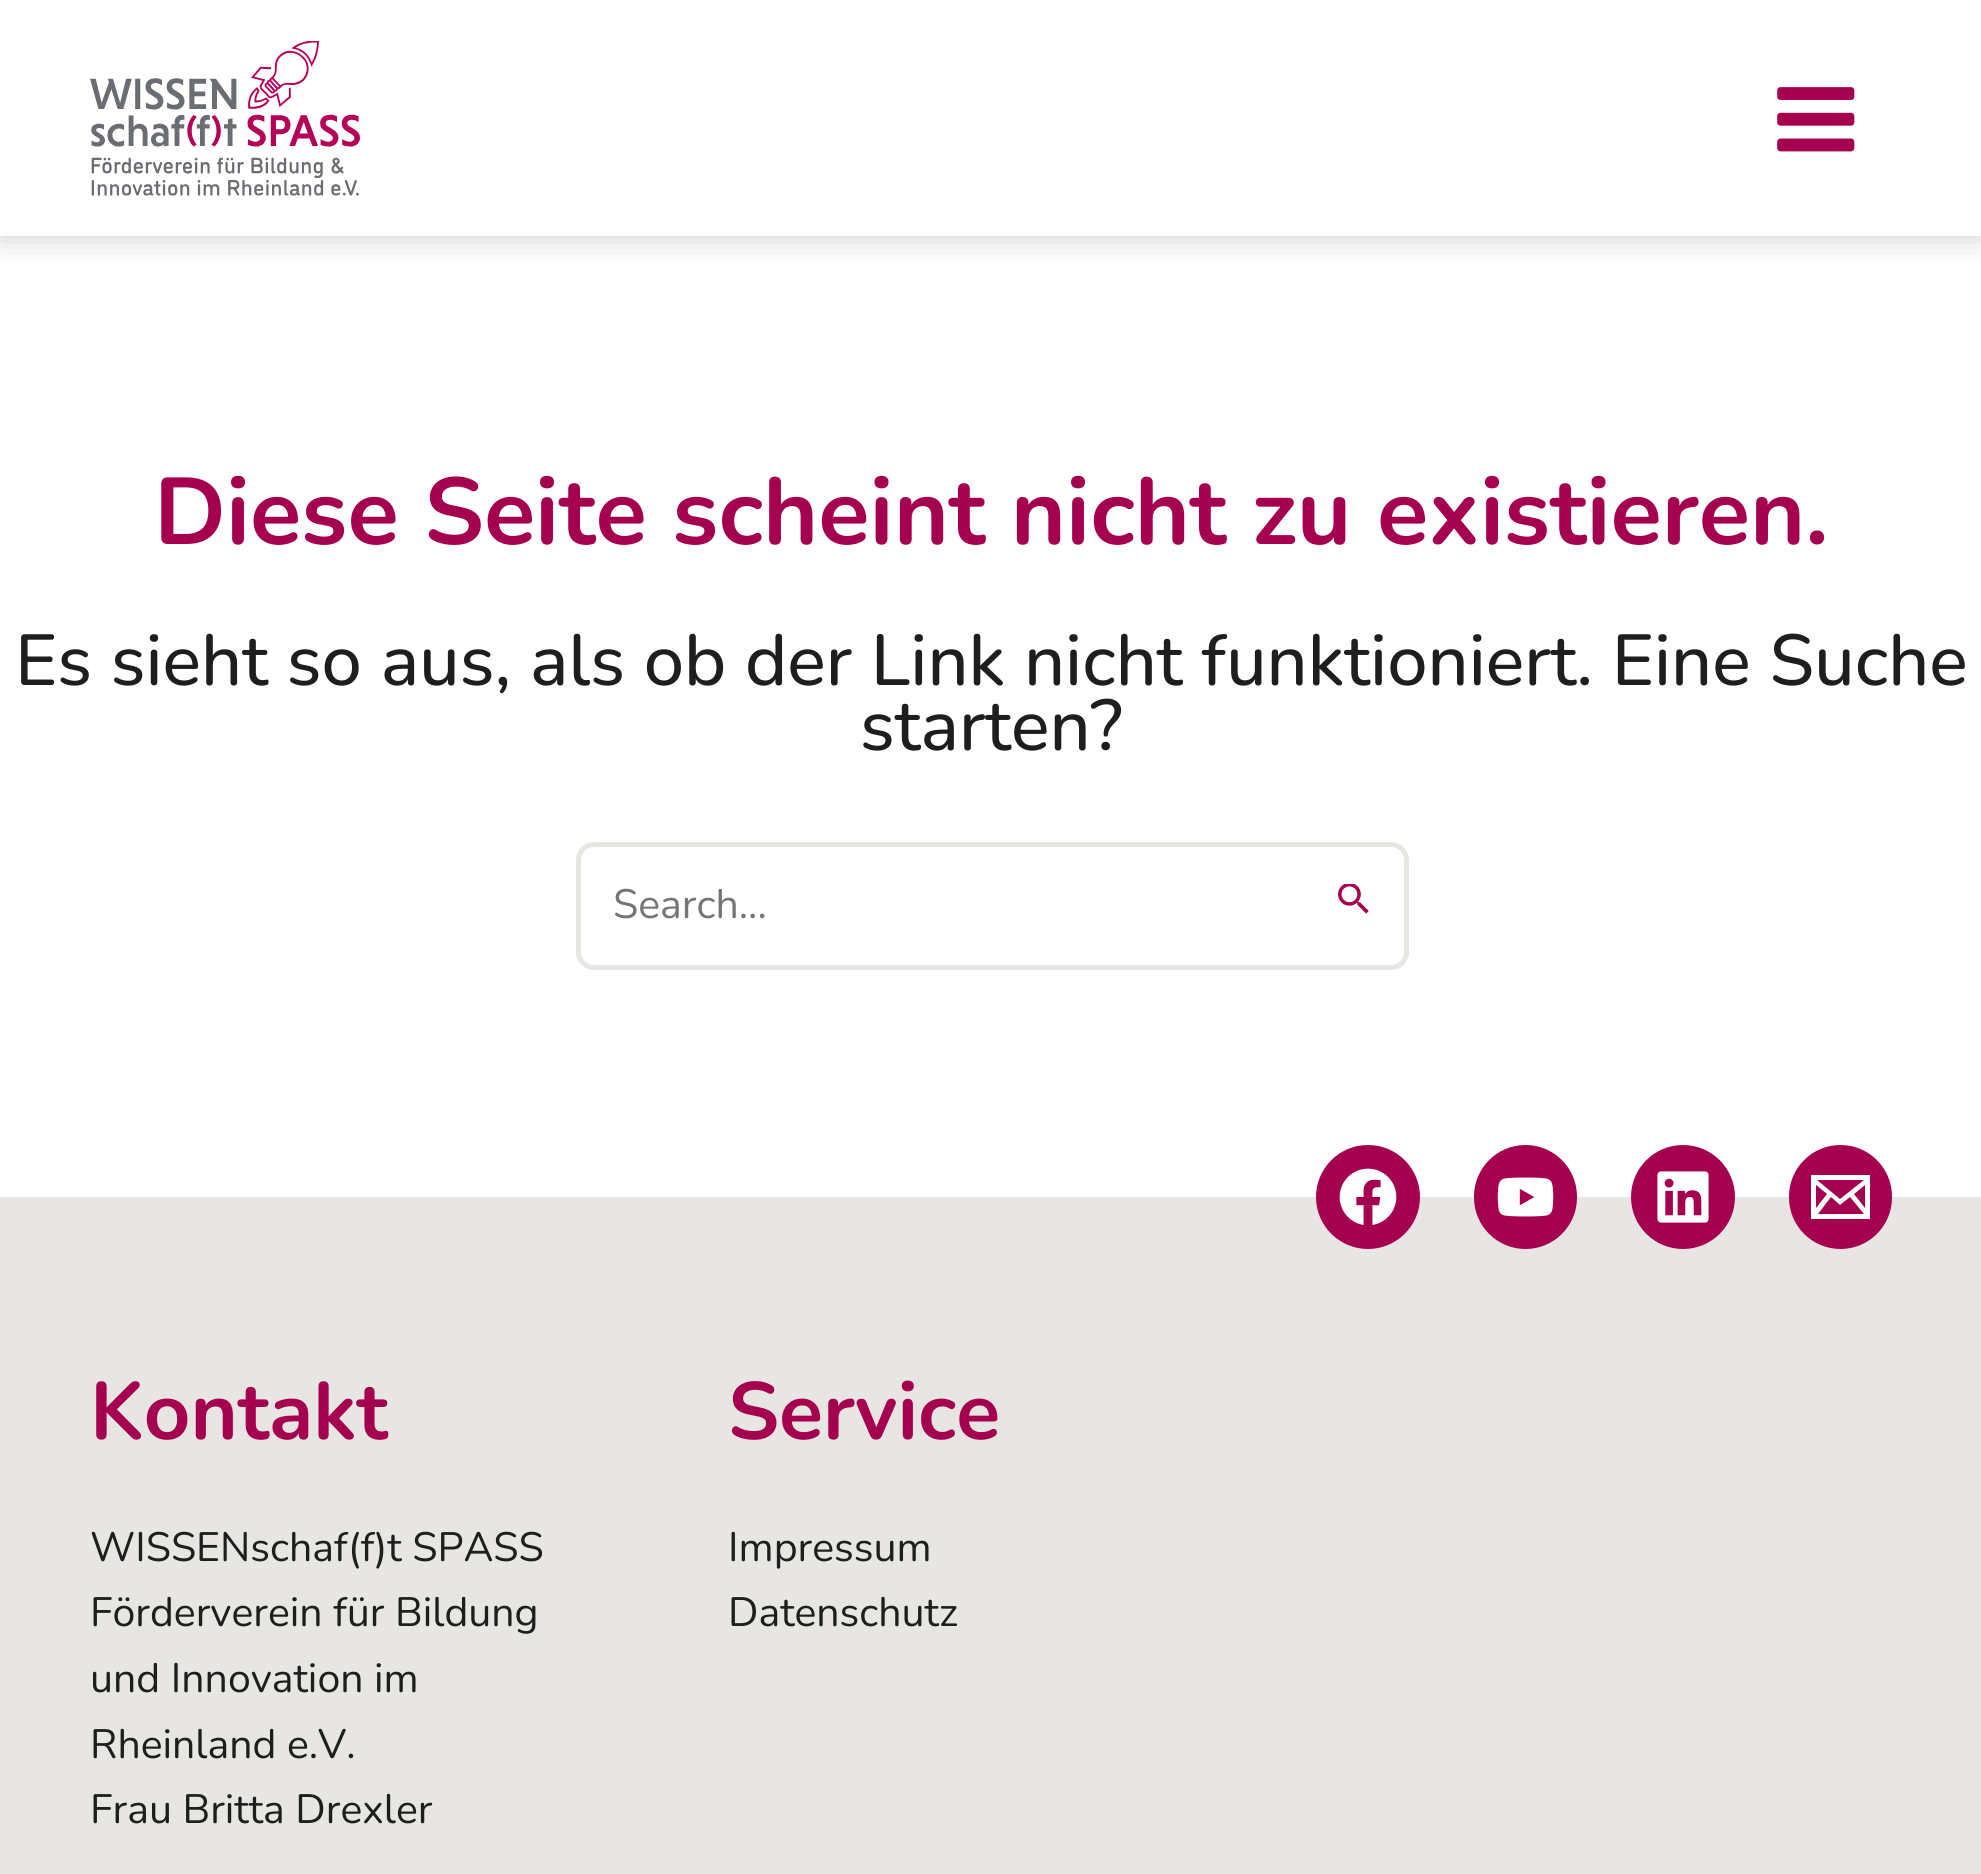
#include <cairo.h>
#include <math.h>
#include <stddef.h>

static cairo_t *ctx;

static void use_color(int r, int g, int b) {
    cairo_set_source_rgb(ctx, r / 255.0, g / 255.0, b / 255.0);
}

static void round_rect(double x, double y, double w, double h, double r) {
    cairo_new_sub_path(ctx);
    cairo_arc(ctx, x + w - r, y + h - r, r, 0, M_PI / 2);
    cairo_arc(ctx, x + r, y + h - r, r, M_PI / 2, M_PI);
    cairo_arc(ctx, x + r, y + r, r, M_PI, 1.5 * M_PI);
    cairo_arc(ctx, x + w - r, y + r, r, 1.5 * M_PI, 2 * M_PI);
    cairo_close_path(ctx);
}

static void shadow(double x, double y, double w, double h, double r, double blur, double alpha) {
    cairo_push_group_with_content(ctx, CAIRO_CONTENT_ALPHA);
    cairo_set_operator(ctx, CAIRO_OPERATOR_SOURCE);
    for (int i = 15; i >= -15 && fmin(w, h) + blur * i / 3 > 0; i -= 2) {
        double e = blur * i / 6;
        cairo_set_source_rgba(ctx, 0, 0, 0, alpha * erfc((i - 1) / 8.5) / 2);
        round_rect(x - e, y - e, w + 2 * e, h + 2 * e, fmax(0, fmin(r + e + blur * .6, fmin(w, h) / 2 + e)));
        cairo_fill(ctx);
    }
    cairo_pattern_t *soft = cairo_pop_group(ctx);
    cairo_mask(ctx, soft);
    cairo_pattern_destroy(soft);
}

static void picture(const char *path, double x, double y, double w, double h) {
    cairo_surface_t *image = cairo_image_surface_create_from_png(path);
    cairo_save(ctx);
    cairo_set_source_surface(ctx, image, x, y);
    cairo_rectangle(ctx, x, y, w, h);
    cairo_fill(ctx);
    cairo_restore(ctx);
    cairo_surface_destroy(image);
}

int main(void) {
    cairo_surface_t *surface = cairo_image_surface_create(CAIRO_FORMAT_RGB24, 1981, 1874);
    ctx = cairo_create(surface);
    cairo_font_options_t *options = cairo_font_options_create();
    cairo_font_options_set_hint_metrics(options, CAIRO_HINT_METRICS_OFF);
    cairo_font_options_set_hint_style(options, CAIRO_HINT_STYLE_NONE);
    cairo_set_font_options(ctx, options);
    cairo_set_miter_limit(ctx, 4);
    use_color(255, 255, 255);
    cairo_paint(ctx);
    cairo_save(ctx);
    cairo_rectangle(ctx, 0, 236, 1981, 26);
    cairo_clip(ctx);
    use_color(117, 120, 123);
    shadow(0, 0, 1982, 236, 0, 16, 0.4);
    cairo_restore(ctx);
    picture("img1.png", 90, 41, 270, 155);
    picture("img2.png", 1777, 87, 78, 65);
    cairo_select_font_face(ctx, "Nunito", CAIRO_FONT_SLANT_NORMAL, CAIRO_FONT_WEIGHT_BOLD);
    cairo_set_font_size(ctx, 94.5);
    use_color(165, 0, 80);
    cairo_move_to(ctx, 154, 544);
    cairo_show_text(ctx, "Diese Seite scheint nicht zu existieren.");
    cairo_select_font_face(ctx, "Nunito Medium", CAIRO_FONT_SLANT_NORMAL, CAIRO_FONT_WEIGHT_NORMAL);
    cairo_set_font_size(ctx, 72);
    use_color(30, 30, 30);
    cairo_move_to(ctx, 15, 685);
    cairo_show_text(ctx, "Es sieht so aus, als ob der Link nicht funktioniert. Eine Suche");
    cairo_move_to(ctx, 860, 750);
    cairo_show_text(ctx, "starten?");
    round_rect(578.5, 844.5, 828, 123, 15.5);
    use_color(231, 230, 226);
    cairo_set_line_width(ctx, 5);
    cairo_stroke(ctx);
    cairo_select_font_face(ctx, "Nunito", CAIRO_FONT_SLANT_NORMAL, CAIRO_FONT_WEIGHT_NORMAL);
    cairo_set_font_size(ctx, 41);
    use_color(117, 117, 117);
    cairo_move_to(ctx, 613, 918);
    cairo_show_text(ctx, "Search...");
    picture("img3.png", 1338, 884, 31, 30);
    use_color(231, 230, 226);
    cairo_rectangle(ctx, 0, 1197, 1981, 677);
    cairo_fill(ctx);
    use_color(165, 0, 80);
    cairo_arc(ctx, 1368, 1197, 52, 0, 2 * M_PI);
    cairo_fill(ctx);
    picture("img4.png", 1339, 1168, 58, 57);
    round_rect(1474, 1145, 103, 104, 51.5);
    cairo_fill(ctx);
    picture("img5.png", 1497, 1177, 57, 40);
    cairo_arc(ctx, 1683, 1197, 52, 0, 2 * M_PI);
    cairo_fill(ctx);
    picture("img6.png", 1657, 1171, 52, 52);
    round_rect(1789, 1145, 103, 104, 51.5);
    cairo_fill(ctx);
    use_color(255, 255, 255);
    cairo_new_path(ctx);
    cairo_move_to(ctx, 1811, 1175);
    cairo_line_to(ctx, 1811, 1219);
    cairo_line_to(ctx, 1870, 1219);
    cairo_line_to(ctx, 1870, 1175);
    cairo_close_path(ctx);
    cairo_move_to(ctx, 1827, 1194);
    cairo_line_to(ctx, 1816, 1208);
    cairo_line_to(ctx, 1816, 1185);
    cairo_close_path(ctx);
    cairo_move_to(ctx, 1817, 1180);
    cairo_line_to(ctx, 1864, 1180);
    cairo_line_to(ctx, 1840, 1199);
    cairo_close_path(ctx);
    cairo_move_to(ctx, 1831, 1197);
    cairo_line_to(ctx, 1840, 1205);
    cairo_line_to(ctx, 1850, 1197);
    cairo_line_to(ctx, 1864, 1214);
    cairo_line_to(ctx, 1818, 1214);
    cairo_close_path(ctx);
    cairo_move_to(ctx, 1854, 1194);
    cairo_line_to(ctx, 1865, 1185);
    cairo_line_to(ctx, 1865, 1208);
    cairo_close_path(ctx);
    cairo_fill(ctx);
    cairo_select_font_face(ctx, "Nunito", CAIRO_FONT_SLANT_NORMAL, CAIRO_FONT_WEIGHT_BOLD);
    cairo_set_font_size(ctx, 81);
    use_color(165, 0, 80);
    cairo_move_to(ctx, 90, 1439);
    cairo_show_text(ctx, "Kontakt");
    cairo_select_font_face(ctx, "Nunito", CAIRO_FONT_SLANT_NORMAL, CAIRO_FONT_WEIGHT_NORMAL);
    cairo_set_font_size(ctx, 41);
    use_color(30, 30, 30);
    cairo_move_to(ctx, 90, 1561);
    cairo_show_text(ctx, "WISSENschaf(f)t SPASS");
    cairo_move_to(ctx, 90, 1626);
    cairo_show_text(ctx, "Förderverein für Bildung");
    cairo_move_to(ctx, 90, 1692);
    cairo_show_text(ctx, "und Innovation im");
    cairo_move_to(ctx, 90, 1758);
    cairo_show_text(ctx, "Rheinland e.V.");
    cairo_move_to(ctx, 90, 1823);
    cairo_show_text(ctx, "Frau Britta Drexler");
    cairo_select_font_face(ctx, "Nunito", CAIRO_FONT_SLANT_NORMAL, CAIRO_FONT_WEIGHT_BOLD);
    cairo_set_font_size(ctx, 81);
    use_color(165, 0, 80);
    cairo_move_to(ctx, 728, 1439);
    cairo_show_text(ctx, "Service");
    cairo_select_font_face(ctx, "Nunito", CAIRO_FONT_SLANT_NORMAL, CAIRO_FONT_WEIGHT_NORMAL);
    cairo_set_font_size(ctx, 41);
    use_color(30, 30, 30);
    cairo_move_to(ctx, 728, 1561);
    cairo_show_text(ctx, "Impressum");
    cairo_move_to(ctx, 728, 1626);
    cairo_show_text(ctx, "Datenschutz");
    cairo_surface_write_to_png(surface, "result.png");
    cairo_font_options_destroy(options);
    cairo_destroy(ctx);
    cairo_surface_destroy(surface);
    return 0;
}
